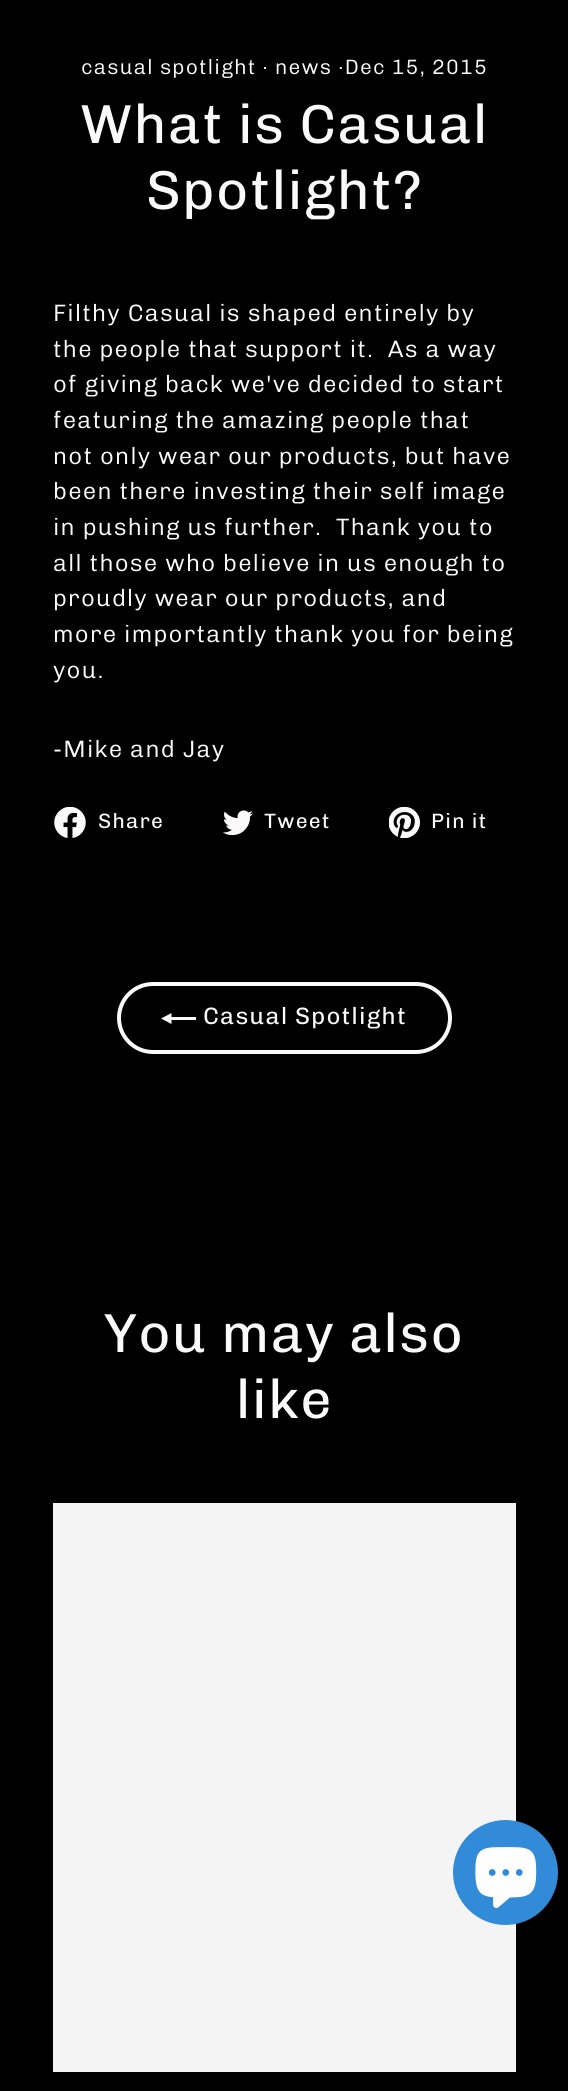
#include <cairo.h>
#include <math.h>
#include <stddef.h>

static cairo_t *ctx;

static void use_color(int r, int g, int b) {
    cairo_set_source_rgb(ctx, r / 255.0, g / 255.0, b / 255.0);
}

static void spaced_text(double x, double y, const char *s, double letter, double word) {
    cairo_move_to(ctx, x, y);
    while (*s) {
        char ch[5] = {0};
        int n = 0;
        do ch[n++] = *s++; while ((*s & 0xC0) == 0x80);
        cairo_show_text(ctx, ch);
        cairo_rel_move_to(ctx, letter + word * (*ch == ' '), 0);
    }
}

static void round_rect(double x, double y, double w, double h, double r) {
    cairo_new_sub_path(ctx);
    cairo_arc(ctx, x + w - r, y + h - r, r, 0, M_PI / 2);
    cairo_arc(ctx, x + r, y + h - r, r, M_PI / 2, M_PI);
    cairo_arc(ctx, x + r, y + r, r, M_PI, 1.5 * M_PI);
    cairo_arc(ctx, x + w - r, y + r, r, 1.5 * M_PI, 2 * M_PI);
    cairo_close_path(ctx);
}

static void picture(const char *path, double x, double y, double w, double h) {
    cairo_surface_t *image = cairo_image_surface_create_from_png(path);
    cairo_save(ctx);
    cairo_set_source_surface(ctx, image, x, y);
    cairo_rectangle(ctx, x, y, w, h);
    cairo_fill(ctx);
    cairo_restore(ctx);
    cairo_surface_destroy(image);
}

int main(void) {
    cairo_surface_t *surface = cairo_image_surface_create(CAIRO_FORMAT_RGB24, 568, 2091);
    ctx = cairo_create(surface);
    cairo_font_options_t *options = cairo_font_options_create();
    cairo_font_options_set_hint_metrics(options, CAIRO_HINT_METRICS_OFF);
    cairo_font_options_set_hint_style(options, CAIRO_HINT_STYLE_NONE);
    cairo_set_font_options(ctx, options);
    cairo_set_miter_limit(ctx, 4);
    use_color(0, 0, 0);
    cairo_paint(ctx);
    cairo_select_font_face(ctx, "Chivo Light", CAIRO_FONT_SLANT_NORMAL, CAIRO_FONT_WEIGHT_NORMAL);
    cairo_set_font_size(ctx, 20.8);
    use_color(251, 249, 249);
    spaced_text(81, 74, "casual spotlight · news ·Dec 15, 2015", 1.2, 0);
    cairo_select_font_face(ctx, "Chivo", CAIRO_FONT_SLANT_NORMAL, CAIRO_FONT_WEIGHT_NORMAL);
    cairo_set_font_size(ctx, 55);
    spaced_text(80, 143, "What is Casual", 1.4, 0);
    spaced_text(146, 209, "Spotlight?", 1.4, 0);
    cairo_select_font_face(ctx, "Chivo Light", CAIRO_FONT_SLANT_NORMAL, CAIRO_FONT_WEIGHT_NORMAL);
    cairo_set_font_size(ctx, 23.75);
    spaced_text(53, 321, "Filthy Casual is shaped entirely by", 1.2, 0);
    spaced_text(53, 357, "the people that support it.  As a way", 1.2, 0);
    spaced_text(53, 392, "of giving back we've decided to start", 1.2, 0);
    spaced_text(53, 428, "featuring the amazing people that", 1.2, 0);
    spaced_text(53, 464, "not only wear our products, but have", 1.2, 0);
    spaced_text(53, 499, "been there investing their self image", 1.2, 0);
    spaced_text(53, 535, "in pushing us further.  Thank you to", 1.2, 0);
    spaced_text(53, 571, "all those who believe in us enough to", 1.2, 0);
    spaced_text(53, 606, "proudly wear our products, and", 1.2, 0);
    spaced_text(53, 642, "more importantly thank you for being", 1.2, 0);
    spaced_text(53, 678, "you.", 1.2, 0);
    spaced_text(53, 757, "-Mike and Jay", 1.2, 0);
    picture("img1.png", 54, 807, 32, 31);
    cairo_select_font_face(ctx, "Chivo", CAIRO_FONT_SLANT_NORMAL, CAIRO_FONT_WEIGHT_NORMAL);
    cairo_set_font_size(ctx, 20.8);
    spaced_text(98, 828, "Share", 1.2, 0);
    picture("img2.png", 223, 810, 30, 26);
    spaced_text(264, 828, "Tweet", 1.2, 0);
    picture("img3.png", 389, 807, 31, 31);
    spaced_text(431, 828, "Pin it", 1.2, 0);
    round_rect(119, 984, 331, 68, 34);
    cairo_set_line_width(ctx, 4);
    cairo_stroke(ctx);
    cairo_new_path(ctx);
    cairo_move_to(ctx, 196, 1017);
    cairo_line_to(ctx, 196, 1020);
    cairo_line_to(ctx, 171.5, 1020);
    cairo_line_to(ctx, 171.5, 1024);
    cairo_line_to(ctx, 161, 1018.5);
    cairo_line_to(ctx, 171.5, 1013);
    cairo_line_to(ctx, 171.5, 1017);
    cairo_close_path(ctx);
    cairo_fill(ctx);
    cairo_set_font_size(ctx, 23.75);
    spaced_text(203, 1024, "Casual Spotlight", 1.2, 0);
    cairo_set_font_size(ctx, 55);
    spaced_text(104, 1352, "You may also", 1.4, 0);
    spaced_text(236, 1418, "like", 1.4, 0);
    use_color(244, 244, 244);
    cairo_rectangle(ctx, 53, 1503, 463, 569);
    cairo_fill(ctx);
    use_color(50, 139, 217);
    cairo_arc(ctx, 505.5, 1872.5, 52.5, 0, 2 * M_PI);
    cairo_fill(ctx);
    picture("img4.png", 475, 1847, 62, 61);
    cairo_surface_write_to_png(surface, "result.png");
    cairo_font_options_destroy(options);
    cairo_destroy(ctx);
    cairo_surface_destroy(surface);
    return 0;
}
